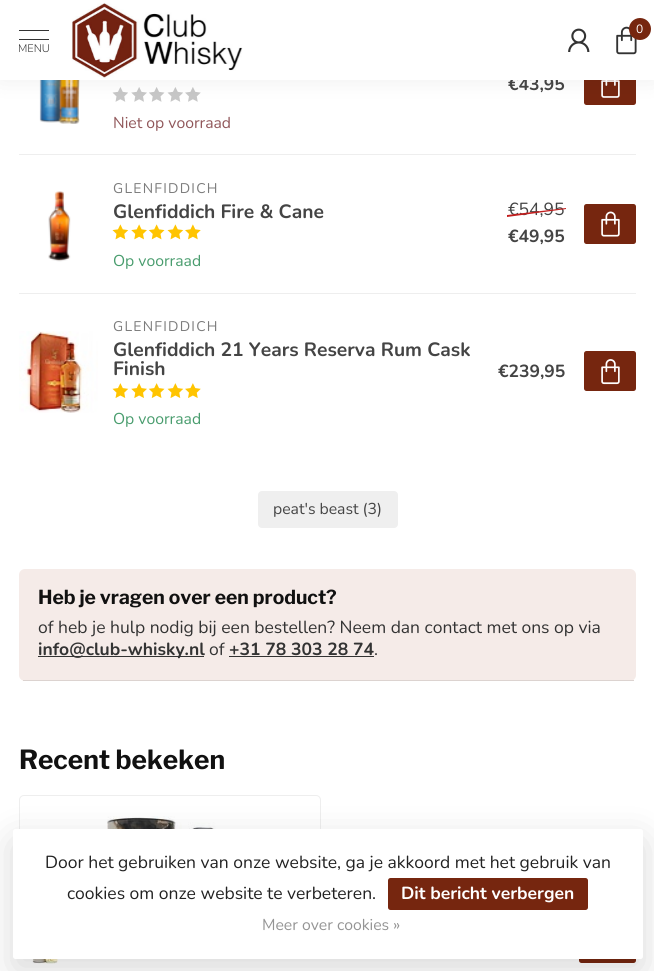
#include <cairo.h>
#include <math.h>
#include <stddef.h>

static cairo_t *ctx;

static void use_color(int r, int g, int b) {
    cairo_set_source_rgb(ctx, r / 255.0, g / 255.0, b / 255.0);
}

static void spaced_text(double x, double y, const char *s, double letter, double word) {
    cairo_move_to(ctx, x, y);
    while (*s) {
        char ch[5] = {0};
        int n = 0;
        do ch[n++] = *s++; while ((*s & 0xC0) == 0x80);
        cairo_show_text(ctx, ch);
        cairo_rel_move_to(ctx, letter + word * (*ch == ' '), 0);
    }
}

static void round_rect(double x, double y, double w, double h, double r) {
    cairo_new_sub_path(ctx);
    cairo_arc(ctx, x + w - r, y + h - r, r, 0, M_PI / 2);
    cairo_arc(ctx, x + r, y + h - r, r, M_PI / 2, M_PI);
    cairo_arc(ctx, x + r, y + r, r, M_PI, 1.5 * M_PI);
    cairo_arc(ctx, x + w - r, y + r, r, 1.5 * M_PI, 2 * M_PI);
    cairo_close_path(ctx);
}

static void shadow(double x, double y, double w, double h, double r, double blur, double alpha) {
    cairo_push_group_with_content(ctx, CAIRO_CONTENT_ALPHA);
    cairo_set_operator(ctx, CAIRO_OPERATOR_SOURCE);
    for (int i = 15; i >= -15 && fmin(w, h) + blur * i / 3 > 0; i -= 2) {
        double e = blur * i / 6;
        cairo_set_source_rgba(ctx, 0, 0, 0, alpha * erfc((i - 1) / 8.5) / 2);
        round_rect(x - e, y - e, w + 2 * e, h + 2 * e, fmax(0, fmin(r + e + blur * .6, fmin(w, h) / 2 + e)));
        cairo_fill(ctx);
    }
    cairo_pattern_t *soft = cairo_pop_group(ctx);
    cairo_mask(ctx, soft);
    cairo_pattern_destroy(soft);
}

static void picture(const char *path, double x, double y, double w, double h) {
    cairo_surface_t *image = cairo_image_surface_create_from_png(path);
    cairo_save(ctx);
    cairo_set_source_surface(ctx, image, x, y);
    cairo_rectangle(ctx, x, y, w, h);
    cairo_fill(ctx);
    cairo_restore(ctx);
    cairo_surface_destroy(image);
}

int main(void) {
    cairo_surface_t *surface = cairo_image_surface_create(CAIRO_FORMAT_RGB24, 654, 971);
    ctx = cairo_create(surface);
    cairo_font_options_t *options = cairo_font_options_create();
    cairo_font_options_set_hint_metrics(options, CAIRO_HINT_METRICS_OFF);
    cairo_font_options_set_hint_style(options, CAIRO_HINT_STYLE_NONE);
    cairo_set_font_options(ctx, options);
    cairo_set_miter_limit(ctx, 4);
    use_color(255, 255, 255);
    cairo_paint(ctx);
    picture("img4.png", 39, 80, 41, 44);
    picture("img5.png", 112, 87, 16, 15);
    picture("img6.png", 131, 87, 16, 15);
    picture("img7.png", 149, 87, 16, 15);
    picture("img5.png", 167, 87, 16, 15);
    picture("img8.png", 185, 87, 16, 15);
    use_color(118, 38, 15);
    round_rect(584, 65, 52, 40, 2.5);
    cairo_fill(ctx);
    picture("img9.png", 601, 80, 19, 18);
    use_color(0, 0, 0);
    shadow(0, -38, 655, 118, 0, 12.5, 0.07);
    cairo_select_font_face(ctx, "Nunito", CAIRO_FONT_SLANT_NORMAL, CAIRO_FONT_WEIGHT_BOLD);
    cairo_set_font_size(ctx, 17.5);
    use_color(68, 68, 68);
    cairo_move_to(ctx, 508, 90);
    cairo_show_text(ctx, "€43,95");
    use_color(255, 255, 255);
    cairo_rectangle(ctx, 0, 0, 654, 80);
    cairo_fill(ctx);
    picture("img1.png", 568, 28, 22, 24);
    picture("img2.png", 616, 26, 21, 29);
    use_color(118, 38, 15);
    cairo_arc(ctx, 640, 29, 11, 0, 2 * M_PI);
    cairo_fill(ctx);
    cairo_select_font_face(ctx, "Nunito", CAIRO_FONT_SLANT_NORMAL, CAIRO_FONT_WEIGHT_NORMAL);
    cairo_set_font_size(ctx, 12);
    use_color(255, 255, 255);
    cairo_move_to(ctx, 636, 33);
    cairo_show_text(ctx, "0");
    use_color(51, 51, 51);
    cairo_rectangle(ctx, 19, 30, 30, 1);
    cairo_fill(ctx);
    cairo_rectangle(ctx, 19, 39, 30, 1);
    cairo_fill(ctx);
    cairo_select_font_face(ctx, "Nunito Light", CAIRO_FONT_SLANT_NORMAL, CAIRO_FONT_WEIGHT_NORMAL);
    cairo_set_font_size(ctx, 11);
    cairo_move_to(ctx, 18, 52);
    cairo_show_text(ctx, "MENU");
    picture("img3.png", 69, 0, 176, 79);
    use_color(238, 238, 238);
    cairo_rectangle(ctx, 19, 154, 617, 1);
    cairo_fill(ctx);
    cairo_select_font_face(ctx, "Nunito", CAIRO_FONT_SLANT_NORMAL, CAIRO_FONT_WEIGHT_NORMAL);
    cairo_set_font_size(ctx, 15.75);
    use_color(144, 86, 89);
    cairo_move_to(ctx, 113, 128);
    cairo_show_text(ctx, "Niet op voorraad");
    use_color(238, 238, 238);
    cairo_rectangle(ctx, 19, 293, 617, 1);
    cairo_fill(ctx);
    picture("img10.png", 48, 191, 23, 71);
    cairo_set_font_size(ctx, 14);
    use_color(124, 124, 124);
    spaced_text(113, 193, "GLENFIDDICH", 1.25, 0);
    cairo_select_font_face(ctx, "Nunito", CAIRO_FONT_SLANT_NORMAL, CAIRO_FONT_WEIGHT_BOLD);
    cairo_set_font_size(ctx, 19.25);
    use_color(68, 68, 68);
    cairo_move_to(ctx, 113, 218);
    cairo_show_text(ctx, "Glenfiddich Fire & Cane");
    picture("img11.png", 112, 224, 17, 16);
    picture("img12.png", 131, 224, 16, 16);
    picture("img13.png", 148, 224, 17, 16);
    picture("img11.png", 167, 224, 17, 16);
    picture("img14.png", 185, 224, 16, 16);
    cairo_select_font_face(ctx, "Nunito", CAIRO_FONT_SLANT_NORMAL, CAIRO_FONT_WEIGHT_NORMAL);
    cairo_set_font_size(ctx, 15.75);
    use_color(72, 156, 109);
    cairo_move_to(ctx, 113, 266);
    cairo_show_text(ctx, "Op voorraad");
    cairo_set_font_size(ctx, 17.5);
    use_color(68, 68, 68);
    cairo_move_to(ctx, 508, 215);
    cairo_show_text(ctx, "€54,95");
    use_color(195, 30, 30);
    cairo_new_path(ctx);
    cairo_move_to(ctx, 507, 215);
    cairo_line_to(ctx, 566, 208);
    cairo_line_to(ctx, 566, 209);
    cairo_line_to(ctx, 507, 217);
    cairo_close_path(ctx);
    cairo_fill(ctx);
    cairo_select_font_face(ctx, "Nunito", CAIRO_FONT_SLANT_NORMAL, CAIRO_FONT_WEIGHT_BOLD);
    use_color(68, 68, 68);
    cairo_move_to(ctx, 508, 242);
    cairo_show_text(ctx, "€49,95");
    use_color(118, 38, 15);
    round_rect(584, 204, 52, 40, 2.5);
    cairo_fill(ctx);
    picture("img15.png", 601, 211, 19, 26);
    picture("img16.png", 19, 331, 79, 82);
    cairo_select_font_face(ctx, "Nunito", CAIRO_FONT_SLANT_NORMAL, CAIRO_FONT_WEIGHT_NORMAL);
    cairo_set_font_size(ctx, 14);
    use_color(124, 124, 124);
    spaced_text(113, 331, "GLENFIDDICH", 1.25, 0);
    cairo_select_font_face(ctx, "Nunito", CAIRO_FONT_SLANT_NORMAL, CAIRO_FONT_WEIGHT_BOLD);
    cairo_set_font_size(ctx, 19.25);
    use_color(68, 68, 68);
    cairo_move_to(ctx, 113, 356);
    cairo_show_text(ctx, "Glenfiddich 21 Years Reserva Rum Cask");
    cairo_move_to(ctx, 113, 375);
    cairo_show_text(ctx, "Finish");
    picture("img17.png", 112, 383, 17, 15);
    picture("img18.png", 131, 383, 16, 15);
    picture("img19.png", 148, 383, 17, 15);
    picture("img17.png", 167, 383, 17, 15);
    picture("img20.png", 185, 383, 16, 15);
    cairo_select_font_face(ctx, "Nunito", CAIRO_FONT_SLANT_NORMAL, CAIRO_FONT_WEIGHT_NORMAL);
    cairo_set_font_size(ctx, 15.75);
    use_color(72, 156, 109);
    cairo_move_to(ctx, 113, 424);
    cairo_show_text(ctx, "Op voorraad");
    cairo_select_font_face(ctx, "Nunito", CAIRO_FONT_SLANT_NORMAL, CAIRO_FONT_WEIGHT_BOLD);
    cairo_set_font_size(ctx, 17.5);
    use_color(68, 68, 68);
    cairo_move_to(ctx, 498, 377);
    cairo_show_text(ctx, "€239,95");
    use_color(118, 38, 15);
    round_rect(584, 351, 52, 40, 2.5);
    cairo_fill(ctx);
    picture("img21.png", 601, 359, 19, 26);
    use_color(239, 239, 239);
    round_rect(258, 491, 140, 37, 4);
    cairo_fill(ctx);
    cairo_select_font_face(ctx, "Nunito", CAIRO_FONT_SLANT_NORMAL, CAIRO_FONT_WEIGHT_NORMAL);
    cairo_set_font_size(ctx, 15.75);
    use_color(68, 68, 68);
    cairo_move_to(ctx, 273, 514);
    cairo_show_text(ctx, "peat's beast (3)");
    use_color(245, 235, 232);
    round_rect(19, 569, 617, 112, 6);
    cairo_fill(ctx);
    use_color(220, 211, 208);
    cairo_rectangle(ctx, 23, 680, 611, 1);
    cairo_fill(ctx);
    cairo_select_font_face(ctx, "Libre Franklin", CAIRO_FONT_SLANT_NORMAL, CAIRO_FONT_WEIGHT_BOLD);
    cairo_set_font_size(ctx, 19.25);
    use_color(17, 17, 17);
    cairo_move_to(ctx, 38, 604);
    cairo_show_text(ctx, "Heb je vragen over een product?");
    cairo_select_font_face(ctx, "Nunito", CAIRO_FONT_SLANT_NORMAL, CAIRO_FONT_WEIGHT_NORMAL);
    cairo_set_font_size(ctx, 17.5);
    use_color(51, 51, 51);
    cairo_move_to(ctx, 38, 633);
    cairo_show_text(ctx, "of heb je hulp nodig bij een bestellen? Neem dan contact met ons op via");
    cairo_rectangle(ctx, 38, 656, 166, 1);
    cairo_fill(ctx);
    cairo_select_font_face(ctx, "Nunito", CAIRO_FONT_SLANT_NORMAL, CAIRO_FONT_WEIGHT_BOLD);
    cairo_move_to(ctx, 38, 655);
    cairo_show_text(ctx, "info@club-whisky.nl");
    cairo_select_font_face(ctx, "Nunito", CAIRO_FONT_SLANT_NORMAL, CAIRO_FONT_WEIGHT_NORMAL);
    cairo_move_to(ctx, 209, 655);
    cairo_show_text(ctx, "of");
    cairo_select_font_face(ctx, "Nunito", CAIRO_FONT_SLANT_NORMAL, CAIRO_FONT_WEIGHT_BOLD);
    cairo_move_to(ctx, 229, 655);
    cairo_show_text(ctx, "+31 78 303 28 74");
    cairo_rectangle(ctx, 229, 656, 145, 1);
    cairo_fill(ctx);
    cairo_select_font_face(ctx, "Nunito", CAIRO_FONT_SLANT_NORMAL, CAIRO_FONT_WEIGHT_NORMAL);
    cairo_move_to(ctx, 374, 655);
    cairo_show_text(ctx, ".");
    cairo_select_font_face(ctx, "Libre Franklin", CAIRO_FONT_SLANT_NORMAL, CAIRO_FONT_WEIGHT_BOLD);
    cairo_set_font_size(ctx, 26.25);
    use_color(17, 17, 17);
    cairo_move_to(ctx, 19, 769);
    cairo_show_text(ctx, "Recent bekeken");
    round_rect(19.5, 795.5, 301, 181, 4.5);
    use_color(238, 238, 238);
    cairo_set_line_width(ctx, 1);
    cairo_stroke(ctx);
    picture("img22.png", 107, 816, 127, 13);
    use_color(255, 255, 255);
    cairo_rectangle(ctx, 19, 906, 302, 65);
    cairo_fill(ctx);
    picture("img23.png", 32, 959, 26, 5);
    use_color(118, 38, 15);
    round_rect(579, 915, 57, 48, 2.5);
    cairo_fill(ctx);
    use_color(0, 0, 0);
    shadow(13, 841, 630, 130, 2.5, 19, 0.15);
    use_color(255, 255, 255);
    round_rect(13, 829, 630, 130, 2.5);
    cairo_fill(ctx);
    cairo_select_font_face(ctx, "Nunito", CAIRO_FONT_SLANT_NORMAL, CAIRO_FONT_WEIGHT_NORMAL);
    cairo_set_font_size(ctx, 17.5);
    use_color(34, 34, 34);
    cairo_move_to(ctx, 45, 868);
    cairo_show_text(ctx, "Door het gebruiken van onze website, ga je akkoord met het gebruik van");
    cairo_move_to(ctx, 67, 899);
    cairo_show_text(ctx, "cookies om onze website te verbeteren.");
    use_color(118, 38, 15);
    round_rect(388, 878, 200, 32, 2.5);
    cairo_fill(ctx);
    cairo_select_font_face(ctx, "Nunito", CAIRO_FONT_SLANT_NORMAL, CAIRO_FONT_WEIGHT_BOLD);
    use_color(255, 255, 255);
    cairo_move_to(ctx, 401, 899);
    cairo_show_text(ctx, "Dit bericht verbergen");
    cairo_select_font_face(ctx, "Nunito", CAIRO_FONT_SLANT_NORMAL, CAIRO_FONT_WEIGHT_NORMAL);
    cairo_set_font_size(ctx, 15.75);
    use_color(148, 148, 148);
    cairo_move_to(ctx, 262, 930);
    cairo_show_text(ctx, "Meer over cookies »");
    cairo_surface_write_to_png(surface, "result.png");
    cairo_font_options_destroy(options);
    cairo_destroy(ctx);
    cairo_surface_destroy(surface);
    return 0;
}
